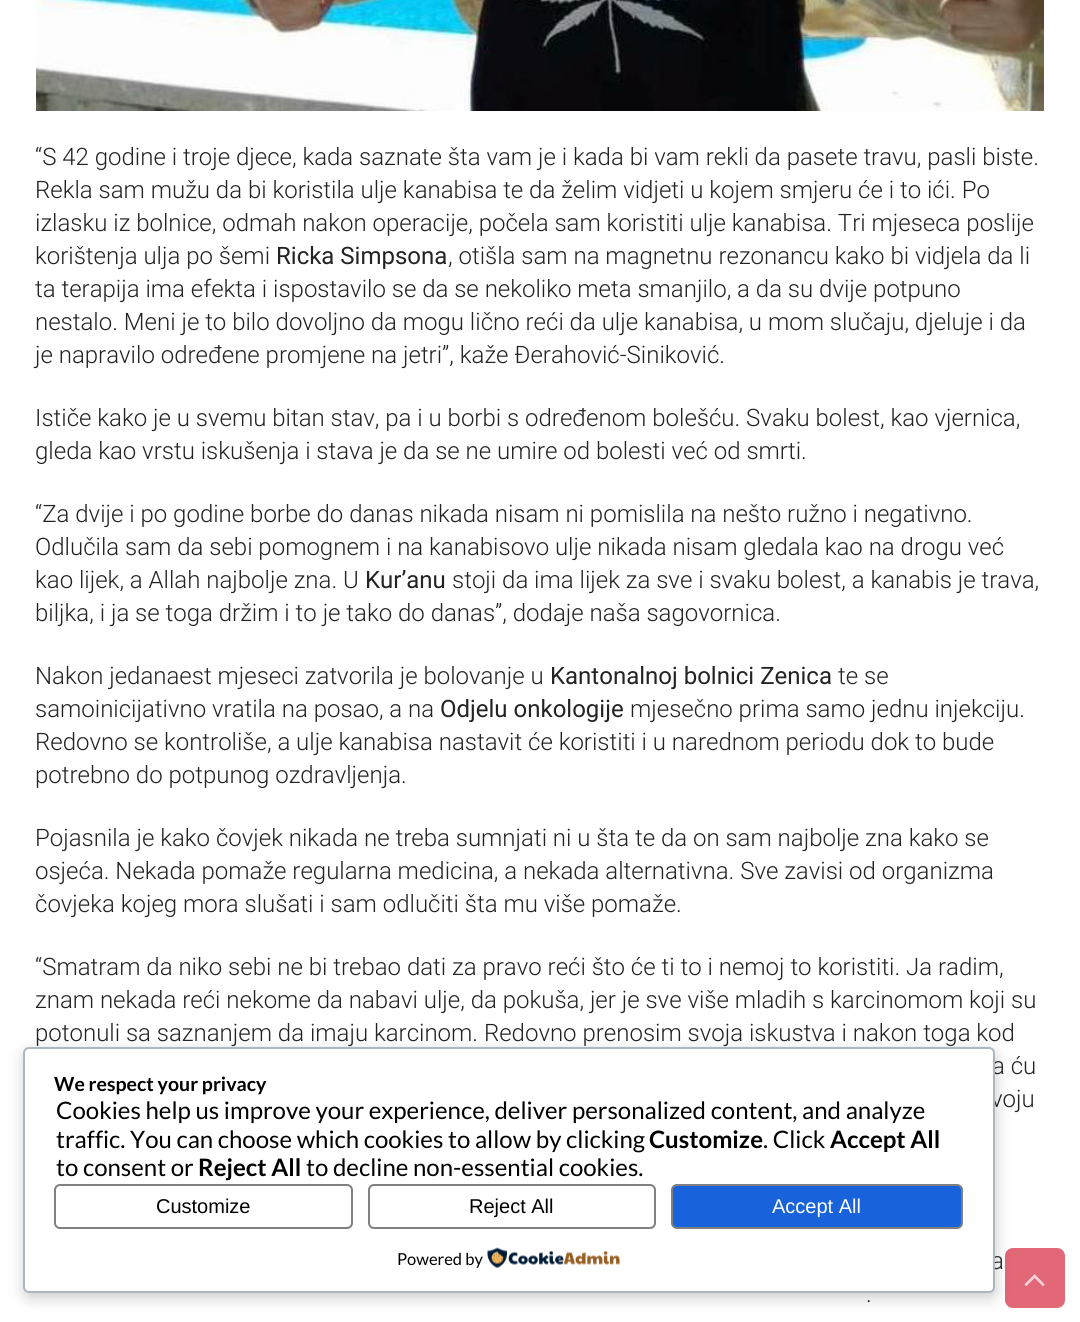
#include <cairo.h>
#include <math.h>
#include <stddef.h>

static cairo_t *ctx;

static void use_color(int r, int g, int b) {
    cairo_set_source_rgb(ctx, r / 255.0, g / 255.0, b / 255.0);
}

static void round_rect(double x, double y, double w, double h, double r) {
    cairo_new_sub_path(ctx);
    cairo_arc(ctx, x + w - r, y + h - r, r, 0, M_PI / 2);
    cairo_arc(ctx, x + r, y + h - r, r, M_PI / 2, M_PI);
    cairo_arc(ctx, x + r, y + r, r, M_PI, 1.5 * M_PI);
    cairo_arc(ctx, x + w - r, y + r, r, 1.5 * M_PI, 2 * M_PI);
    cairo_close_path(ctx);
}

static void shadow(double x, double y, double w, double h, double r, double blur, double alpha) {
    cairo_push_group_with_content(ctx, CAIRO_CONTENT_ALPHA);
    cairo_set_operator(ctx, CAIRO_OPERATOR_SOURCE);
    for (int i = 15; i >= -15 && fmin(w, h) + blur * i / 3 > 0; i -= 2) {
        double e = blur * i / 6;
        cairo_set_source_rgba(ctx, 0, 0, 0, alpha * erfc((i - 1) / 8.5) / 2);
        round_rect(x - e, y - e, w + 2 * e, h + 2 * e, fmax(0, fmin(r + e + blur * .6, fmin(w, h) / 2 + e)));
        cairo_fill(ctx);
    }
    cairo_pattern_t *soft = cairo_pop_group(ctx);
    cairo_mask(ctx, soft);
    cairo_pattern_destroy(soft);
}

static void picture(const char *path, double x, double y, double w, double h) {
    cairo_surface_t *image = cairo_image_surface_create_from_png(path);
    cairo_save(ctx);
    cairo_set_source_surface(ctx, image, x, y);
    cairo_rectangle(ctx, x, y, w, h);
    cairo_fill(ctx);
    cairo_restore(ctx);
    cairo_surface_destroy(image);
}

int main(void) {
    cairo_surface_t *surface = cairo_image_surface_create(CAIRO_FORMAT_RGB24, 1080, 1322);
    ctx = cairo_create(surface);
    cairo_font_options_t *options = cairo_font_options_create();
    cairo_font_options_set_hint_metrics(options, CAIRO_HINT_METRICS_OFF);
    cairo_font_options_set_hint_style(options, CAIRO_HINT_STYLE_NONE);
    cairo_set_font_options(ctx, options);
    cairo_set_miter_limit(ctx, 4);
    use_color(255, 255, 255);
    cairo_paint(ctx);
    picture("img1.png", 36, 0, 1008, 111);
    cairo_select_font_face(ctx, "Roboto Light", CAIRO_FONT_SLANT_NORMAL, CAIRO_FONT_WEIGHT_NORMAL);
    cairo_set_font_size(ctx, 24);
    use_color(36, 34, 36);
    cairo_move_to(ctx, 35, 165);
    cairo_show_text(ctx, "“S 42 godine i troje djece, kada saznate šta vam je i kada bi vam rekli da pasete travu, pasli biste.");
    cairo_move_to(ctx, 35, 198);
    cairo_show_text(ctx, "Rekla sam mužu da bi koristila ulje kanabisa te da želim vidjeti u kojem smjeru će i to ići. Po");
    cairo_move_to(ctx, 35, 231);
    cairo_show_text(ctx, "izlasku iz bolnice, odmah nakon operacije, počela sam koristiti ulje kanabisa. Tri mjeseca poslije");
    cairo_move_to(ctx, 35, 264);
    cairo_show_text(ctx, "korištenja ulja po šemi");
    cairo_select_font_face(ctx, "Roboto", CAIRO_FONT_SLANT_NORMAL, CAIRO_FONT_WEIGHT_NORMAL);
    cairo_move_to(ctx, 276, 264);
    cairo_show_text(ctx, "Ricka Simpsona");
    cairo_select_font_face(ctx, "Roboto Light", CAIRO_FONT_SLANT_NORMAL, CAIRO_FONT_WEIGHT_NORMAL);
    cairo_move_to(ctx, 448, 264);
    cairo_show_text(ctx, ", otišla sam na magnetnu rezonancu kako bi vidjela da li");
    cairo_move_to(ctx, 35, 297);
    cairo_show_text(ctx, "ta terapija ima efekta i ispostavilo se da se nekoliko meta smanjilo, a da su dvije potpuno");
    cairo_move_to(ctx, 35, 330);
    cairo_show_text(ctx, "nestalo. Meni je to bilo dovoljno da mogu lično reći da ulje kanabisa, u mom slučaju, djeluje i da");
    cairo_move_to(ctx, 35, 363);
    cairo_show_text(ctx, "je napravilo određene promjene na jetri”, kaže Đerahović-Siniković.");
    cairo_move_to(ctx, 35, 426);
    cairo_show_text(ctx, "Ističe kako je u svemu bitan stav, pa i u borbi s određenom bolešću. Svaku bolest, kao vjernica,");
    cairo_move_to(ctx, 35, 459);
    cairo_show_text(ctx, "gleda kao vrstu iskušenja i stava je da se ne umire od bolesti već od smrti.");
    cairo_move_to(ctx, 35, 522);
    cairo_show_text(ctx, "“Za dvije i po godine borbe do danas nikada nisam ni pomislila na nešto ružno i negativno.");
    cairo_move_to(ctx, 35, 555);
    cairo_show_text(ctx, "Odlučila sam da sebi pomognem i na kanabisovo ulje nikada nisam gledala kao na drogu već");
    cairo_move_to(ctx, 35, 588);
    cairo_show_text(ctx, "kao lijek, a Allah najbolje zna. U");
    cairo_select_font_face(ctx, "Roboto", CAIRO_FONT_SLANT_NORMAL, CAIRO_FONT_WEIGHT_NORMAL);
    cairo_move_to(ctx, 365, 588);
    cairo_show_text(ctx, "Kur’anu");
    cairo_select_font_face(ctx, "Roboto Light", CAIRO_FONT_SLANT_NORMAL, CAIRO_FONT_WEIGHT_NORMAL);
    cairo_move_to(ctx, 452, 588);
    cairo_show_text(ctx, "stoji da ima lijek za sve i svaku bolest, a kanabis je trava,");
    cairo_move_to(ctx, 35, 621);
    cairo_show_text(ctx, "biljka, i ja se toga držim i to je tako do danas”, dodaje naša sagovornica.");
    cairo_move_to(ctx, 35, 684);
    cairo_show_text(ctx, "Nakon jedanaest mjeseci zatvorila je bolovanje u");
    cairo_select_font_face(ctx, "Roboto", CAIRO_FONT_SLANT_NORMAL, CAIRO_FONT_WEIGHT_NORMAL);
    cairo_move_to(ctx, 550, 684);
    cairo_show_text(ctx, "Kantonalnoj bolnici Zenica");
    cairo_select_font_face(ctx, "Roboto Light", CAIRO_FONT_SLANT_NORMAL, CAIRO_FONT_WEIGHT_NORMAL);
    cairo_move_to(ctx, 838, 684);
    cairo_show_text(ctx, "te se");
    cairo_move_to(ctx, 35, 717);
    cairo_show_text(ctx, "samoinicijativno vratila na posao, a na");
    cairo_select_font_face(ctx, "Roboto", CAIRO_FONT_SLANT_NORMAL, CAIRO_FONT_WEIGHT_NORMAL);
    cairo_move_to(ctx, 440, 717);
    cairo_show_text(ctx, "Odjelu onkologije");
    cairo_select_font_face(ctx, "Roboto Light", CAIRO_FONT_SLANT_NORMAL, CAIRO_FONT_WEIGHT_NORMAL);
    cairo_move_to(ctx, 630, 717);
    cairo_show_text(ctx, "mjesečno prima samo jednu injekciju.");
    cairo_move_to(ctx, 35, 750);
    cairo_show_text(ctx, "Redovno se kontroliše, a ulje kanabisa nastavit će koristiti i u narednom periodu dok to bude");
    cairo_move_to(ctx, 35, 783);
    cairo_show_text(ctx, "potrebno do potpunog ozdravljenja.");
    cairo_move_to(ctx, 35, 846);
    cairo_show_text(ctx, "Pojasnila je kako čovjek nikada ne treba sumnjati ni u šta te da on sam najbolje zna kako se");
    cairo_move_to(ctx, 35, 879);
    cairo_show_text(ctx, "osjeća. Nekada pomaže regularna medicina, a nekada alternativna. Sve zavisi od organizma");
    cairo_move_to(ctx, 35, 912);
    cairo_show_text(ctx, "čovjeka kojeg mora slušati i sam odlučiti šta mu više pomaže.");
    cairo_move_to(ctx, 35, 975);
    cairo_show_text(ctx, "“Smatram da niko sebi ne bi trebao dati za pravo reći što će ti to i nemoj to koristiti. Ja radim,");
    cairo_move_to(ctx, 35, 1008);
    cairo_show_text(ctx, "znam nekada reći nekome da nabavi ulje, da pokuša, jer je sve više mladih s karcinomom koji su");
    cairo_move_to(ctx, 35, 1041);
    cairo_show_text(ctx, "potonuli sa saznanjem da imaju karcinom. Redovno prenosim svoja iskustva i nakon toga kod");
    cairo_move_to(ctx, 992, 1074);
    cairo_show_text(ctx, "a ću");
    cairo_move_to(ctx, 991, 1107);
    cairo_show_text(ctx, "voju");
    cairo_move_to(ctx, 991, 1269);
    cairo_show_text(ctx, "a");
    cairo_move_to(ctx, 866, 1302);
    cairo_show_text(ctx, ".");
    cairo_set_source_rgba(ctx, 0.839, 0.153, 0.243, 0.7);
    round_rect(1005, 1248, 60, 60, 8);
    cairo_fill(ctx);
    use_color(0, 0, 0);
    shadow(24, 1052, 972, 246, 6, 7.5, 0.2);
    use_color(255, 255, 255);
    round_rect(24, 1048, 970, 244, 5);
    cairo_fill_preserve(ctx);
    use_color(171, 184, 195);
    cairo_stroke(ctx);
    cairo_select_font_face(ctx, "Lato", CAIRO_FONT_SLANT_NORMAL, CAIRO_FONT_WEIGHT_BOLD);
    cairo_set_font_size(ctx, 19.5);
    use_color(0, 0, 0);
    cairo_move_to(ctx, 54, 1091);
    cairo_show_text(ctx, "We respect your privacy");
    cairo_select_font_face(ctx, "Lato", CAIRO_FONT_SLANT_NORMAL, CAIRO_FONT_WEIGHT_NORMAL);
    cairo_set_font_size(ctx, 24);
    cairo_move_to(ctx, 56, 1119);
    cairo_show_text(ctx, "Cookies help us improve your experience, deliver personalized content, and analyze");
    cairo_move_to(ctx, 56, 1148);
    cairo_show_text(ctx, "traffic. You can choose which cookies to allow by clicking");
    cairo_select_font_face(ctx, "Lato", CAIRO_FONT_SLANT_NORMAL, CAIRO_FONT_WEIGHT_BOLD);
    cairo_move_to(ctx, 649, 1148);
    cairo_show_text(ctx, "Customize");
    cairo_select_font_face(ctx, "Lato", CAIRO_FONT_SLANT_NORMAL, CAIRO_FONT_WEIGHT_NORMAL);
    cairo_move_to(ctx, 763, 1148);
    cairo_show_text(ctx, ". Click");
    cairo_select_font_face(ctx, "Lato", CAIRO_FONT_SLANT_NORMAL, CAIRO_FONT_WEIGHT_BOLD);
    cairo_move_to(ctx, 830, 1148);
    cairo_show_text(ctx, "Accept All");
    cairo_select_font_face(ctx, "Lato", CAIRO_FONT_SLANT_NORMAL, CAIRO_FONT_WEIGHT_NORMAL);
    cairo_move_to(ctx, 56, 1176);
    cairo_show_text(ctx, "to consent or");
    cairo_select_font_face(ctx, "Lato", CAIRO_FONT_SLANT_NORMAL, CAIRO_FONT_WEIGHT_BOLD);
    cairo_move_to(ctx, 198, 1176);
    cairo_show_text(ctx, "Reject All");
    cairo_select_font_face(ctx, "Lato", CAIRO_FONT_SLANT_NORMAL, CAIRO_FONT_WEIGHT_NORMAL);
    cairo_move_to(ctx, 306, 1176);
    cairo_show_text(ctx, "to decline non-essential cookies.");
    round_rect(55, 1185, 297, 43, 5);
    use_color(128, 128, 128);
    cairo_stroke(ctx);
    cairo_select_font_face(ctx, "Liberation Sans", CAIRO_FONT_SLANT_NORMAL, CAIRO_FONT_WEIGHT_NORMAL);
    cairo_set_font_size(ctx, 20);
    use_color(0, 0, 0);
    cairo_move_to(ctx, 156, 1213);
    cairo_show_text(ctx, "Customize");
    round_rect(369, 1185, 286, 43, 5);
    use_color(128, 128, 128);
    cairo_stroke(ctx);
    use_color(0, 0, 0);
    cairo_move_to(ctx, 469, 1213);
    cairo_show_text(ctx, "Reject All");
    use_color(24, 99, 220);
    round_rect(672, 1185, 290, 43, 5);
    cairo_fill_preserve(ctx);
    use_color(128, 128, 128);
    cairo_stroke(ctx);
    use_color(255, 255, 255);
    cairo_move_to(ctx, 772, 1213);
    cairo_show_text(ctx, "Accept All");
    cairo_select_font_face(ctx, "Lato", CAIRO_FONT_SLANT_NORMAL, CAIRO_FONT_WEIGHT_NORMAL);
    cairo_set_font_size(ctx, 16.5);
    use_color(0, 0, 0);
    cairo_move_to(ctx, 397, 1265);
    cairo_show_text(ctx, "Powered by");
    picture("img2.png", 487, 1247, 133, 22);
    picture("img3.png", 1024, 1274, 21, 12);
    cairo_surface_write_to_png(surface, "result.png");
    cairo_font_options_destroy(options);
    cairo_destroy(ctx);
    cairo_surface_destroy(surface);
    return 0;
}
